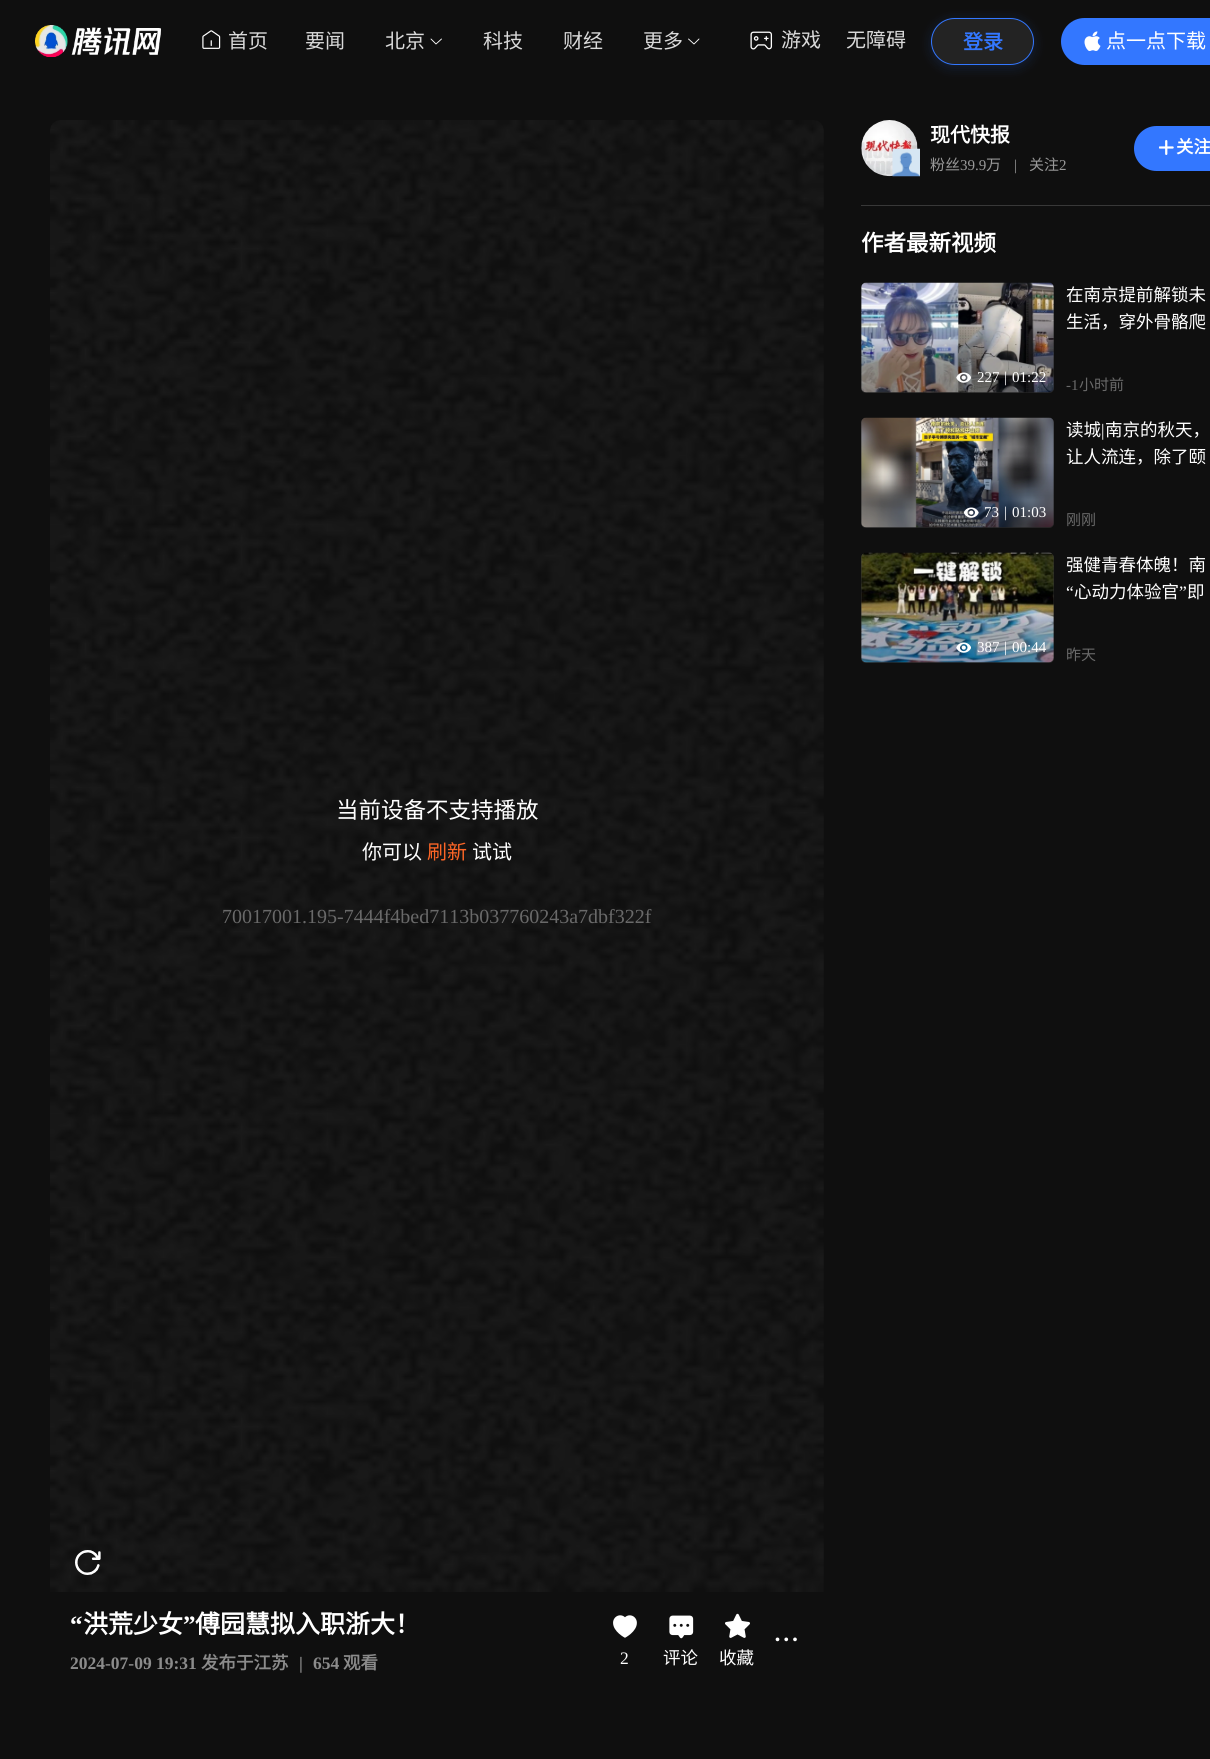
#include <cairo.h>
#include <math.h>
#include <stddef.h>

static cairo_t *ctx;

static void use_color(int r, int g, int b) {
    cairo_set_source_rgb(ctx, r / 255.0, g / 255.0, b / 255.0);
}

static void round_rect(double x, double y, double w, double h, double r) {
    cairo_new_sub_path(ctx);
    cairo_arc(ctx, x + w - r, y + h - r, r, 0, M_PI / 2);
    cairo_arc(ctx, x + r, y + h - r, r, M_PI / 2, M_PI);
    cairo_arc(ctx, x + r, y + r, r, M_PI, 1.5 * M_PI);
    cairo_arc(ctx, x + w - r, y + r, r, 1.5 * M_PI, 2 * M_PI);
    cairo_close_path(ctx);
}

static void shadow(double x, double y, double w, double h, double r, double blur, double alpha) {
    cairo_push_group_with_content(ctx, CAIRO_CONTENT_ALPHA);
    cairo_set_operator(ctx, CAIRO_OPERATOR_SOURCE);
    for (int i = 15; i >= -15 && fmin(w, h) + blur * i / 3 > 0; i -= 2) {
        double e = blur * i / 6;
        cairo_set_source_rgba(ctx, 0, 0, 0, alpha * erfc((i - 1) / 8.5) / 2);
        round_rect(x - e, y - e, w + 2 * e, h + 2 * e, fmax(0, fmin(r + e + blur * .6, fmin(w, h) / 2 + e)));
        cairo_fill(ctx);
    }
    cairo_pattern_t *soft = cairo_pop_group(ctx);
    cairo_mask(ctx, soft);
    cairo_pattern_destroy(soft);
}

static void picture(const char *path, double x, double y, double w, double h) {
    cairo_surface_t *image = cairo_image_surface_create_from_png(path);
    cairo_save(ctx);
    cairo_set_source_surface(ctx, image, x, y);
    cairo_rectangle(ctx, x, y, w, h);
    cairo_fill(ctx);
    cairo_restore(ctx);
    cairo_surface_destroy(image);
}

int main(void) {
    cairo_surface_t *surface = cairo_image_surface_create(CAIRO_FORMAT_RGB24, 1210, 1759);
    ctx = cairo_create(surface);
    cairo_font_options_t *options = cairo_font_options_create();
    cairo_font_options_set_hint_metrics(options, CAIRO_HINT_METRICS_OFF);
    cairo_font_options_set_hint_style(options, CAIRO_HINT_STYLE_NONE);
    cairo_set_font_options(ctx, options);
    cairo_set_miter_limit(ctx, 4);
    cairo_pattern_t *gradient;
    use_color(15, 15, 15);
    cairo_paint(ctx);
    picture("img1.png", 35, 25, 126, 32);
    picture("img2.png", 202, 30, 19, 19);
    cairo_select_font_face(ctx, "Noto Sans CJK SC", CAIRO_FONT_SLANT_NORMAL, CAIRO_FONT_WEIGHT_NORMAL);
    cairo_set_font_size(ctx, 20);
    use_color(217, 217, 217);
    cairo_move_to(ctx, 228, 48);
    cairo_show_text(ctx, "首页");
    cairo_move_to(ctx, 305, 48);
    cairo_show_text(ctx, "要闻");
    cairo_move_to(ctx, 385, 48);
    cairo_show_text(ctx, "北京");
    cairo_new_path(ctx);
    cairo_move_to(ctx, 441.5, 39);
    cairo_line_to(ctx, 436, 44);
    cairo_line_to(ctx, 431, 39);
    use_color(255, 255, 255);
    cairo_set_line_width(ctx, 0.9);
    cairo_set_line_cap(ctx, CAIRO_LINE_CAP_ROUND);
    cairo_set_line_join(ctx, CAIRO_LINE_JOIN_ROUND);
    cairo_stroke(ctx);
    use_color(217, 217, 217);
    cairo_move_to(ctx, 483, 48);
    cairo_show_text(ctx, "科技");
    cairo_move_to(ctx, 563, 48);
    cairo_show_text(ctx, "财经");
    cairo_move_to(ctx, 643, 48);
    cairo_show_text(ctx, "更多");
    cairo_new_path(ctx);
    cairo_move_to(ctx, 699, 39);
    cairo_line_to(ctx, 694, 44);
    cairo_line_to(ctx, 688.5, 39);
    use_color(255, 255, 255);
    cairo_stroke(ctx);
    picture("img3.png", 750, 31, 23, 19);
    use_color(217, 217, 217);
    cairo_move_to(ctx, 781, 47);
    cairo_show_text(ctx, "游戏");
    cairo_move_to(ctx, 846, 47);
    cairo_show_text(ctx, "无障碍");
    cairo_save(ctx);
    cairo_set_fill_rule(ctx, CAIRO_FILL_RULE_EVEN_ODD);
    cairo_new_path(ctx);
    cairo_move_to(ctx, 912, 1);
    cairo_line_to(ctx, 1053, 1);
    cairo_line_to(ctx, 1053, 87);
    cairo_line_to(ctx, 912, 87);
    cairo_close_path(ctx);
    cairo_move_to(ctx, 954.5, 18);
    cairo_line_to(ctx, 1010.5, 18);
    cairo_curve_to(ctx, 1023.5, 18, 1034, 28.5, 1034, 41.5);
    cairo_curve_to(ctx, 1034, 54.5, 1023.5, 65, 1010.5, 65);
    cairo_line_to(ctx, 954.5, 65);
    cairo_curve_to(ctx, 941.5, 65, 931, 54.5, 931, 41.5);
    cairo_curve_to(ctx, 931, 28.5, 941.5, 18, 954.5, 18);
    cairo_close_path(ctx);
    cairo_clip(ctx);
    use_color(51, 119, 255);
    shadow(931, 20, 103, 48, 24, 6, 0.16);
    cairo_restore(ctx);
    cairo_set_source_rgba(ctx, 0.851, 0.851, 0.851, 0.1);
    round_rect(931.5, 18.5, 102, 46, 23);
    cairo_fill_preserve(ctx);
    use_color(51, 119, 255);
    cairo_set_line_width(ctx, 1);
    cairo_set_line_cap(ctx, CAIRO_LINE_CAP_BUTT);
    cairo_set_line_join(ctx, CAIRO_LINE_JOIN_MITER);
    cairo_stroke(ctx);
    cairo_select_font_face(ctx, "Noto Sans CJK SC", CAIRO_FONT_SLANT_NORMAL, CAIRO_FONT_WEIGHT_BOLD);
    cairo_move_to(ctx, 963, 49);
    cairo_show_text(ctx, "登录");
    round_rect(1061, 18, 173, 47, 23.5);
    cairo_fill(ctx);
    picture("img4.png", 1084, 31, 17, 20);
    cairo_select_font_face(ctx, "Noto Sans CJK SC", CAIRO_FONT_SLANT_NORMAL, CAIRO_FONT_WEIGHT_NORMAL);
    use_color(255, 255, 255);
    cairo_move_to(ctx, 1106, 48);
    cairo_show_text(ctx, "点一点下载");
    picture("img5.png", 861, 120, 57, 57);
    picture("img6.png", 892, 148, 28, 29);
    cairo_select_font_face(ctx, "Noto Sans CJK SC", CAIRO_FONT_SLANT_NORMAL, CAIRO_FONT_WEIGHT_BOLD);
    cairo_move_to(ctx, 930, 142);
    cairo_show_text(ctx, "现代快报");
    cairo_select_font_face(ctx, "Noto Sans CJK SC", CAIRO_FONT_SLANT_NORMAL, CAIRO_FONT_WEIGHT_NORMAL);
    cairo_set_font_size(ctx, 15);
    use_color(153, 153, 153);
    cairo_move_to(ctx, 930, 170);
    cairo_show_text(ctx, "粉丝");
    cairo_select_font_face(ctx, "Liberation Serif", CAIRO_FONT_SLANT_NORMAL, CAIRO_FONT_WEIGHT_NORMAL);
    cairo_move_to(ctx, 960, 170);
    cairo_show_text(ctx, "39.9");
    cairo_select_font_face(ctx, "Noto Sans CJK SC", CAIRO_FONT_SLANT_NORMAL, CAIRO_FONT_WEIGHT_NORMAL);
    cairo_move_to(ctx, 986, 170);
    cairo_show_text(ctx, "万");
    cairo_select_font_face(ctx, "Liberation Serif", CAIRO_FONT_SLANT_NORMAL, CAIRO_FONT_WEIGHT_NORMAL);
    cairo_move_to(ctx, 1014, 170);
    cairo_show_text(ctx, "|");
    cairo_select_font_face(ctx, "Noto Sans CJK SC", CAIRO_FONT_SLANT_NORMAL, CAIRO_FONT_WEIGHT_NORMAL);
    cairo_move_to(ctx, 1029, 170);
    cairo_show_text(ctx, "关注");
    cairo_select_font_face(ctx, "Liberation Serif", CAIRO_FONT_SLANT_NORMAL, CAIRO_FONT_WEIGHT_NORMAL);
    cairo_move_to(ctx, 1059, 170);
    cairo_show_text(ctx, "2");
    use_color(51, 119, 255);
    round_rect(1134, 126, 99, 45, 22.5);
    cairo_fill(ctx);
    picture("img7.png", 1159, 140, 15, 15);
    cairo_select_font_face(ctx, "Noto Sans CJK SC", CAIRO_FONT_SLANT_NORMAL, CAIRO_FONT_WEIGHT_BOLD);
    cairo_set_font_size(ctx, 17.5);
    use_color(255, 255, 255);
    cairo_move_to(ctx, 1176, 153);
    cairo_show_text(ctx, "关注");
    use_color(56, 56, 56);
    cairo_rectangle(ctx, 861, 205, 349, 1);
    cairo_fill(ctx);
    cairo_set_font_size(ctx, 22.5);
    use_color(255, 255, 255);
    cairo_move_to(ctx, 861, 251);
    cairo_show_text(ctx, "作者最新视频");
    use_color(51, 51, 51);
    round_rect(861, 283, 193, 110, 5);
    cairo_fill(ctx);
    picture("img8.png", 861, 282, 193, 111);
    gradient = cairo_pattern_create_linear(958, 393, 958, 283);
    cairo_pattern_add_color_stop_rgba(gradient, 0.3, 0, 0, 0, 0.3);
    cairo_pattern_add_color_stop_rgba(gradient, 0.6, 0, 0, 0, 0);
    cairo_set_source(ctx, gradient);
    cairo_pattern_destroy(gradient);
    round_rect(861, 283, 193, 110, 5);
    cairo_fill(ctx);
    picture("img9.png", 956, 372, 15, 11);
    cairo_select_font_face(ctx, "Liberation Serif", CAIRO_FONT_SLANT_NORMAL, CAIRO_FONT_WEIGHT_NORMAL);
    cairo_set_font_size(ctx, 15);
    use_color(255, 255, 255);
    cairo_move_to(ctx, 977, 382);
    cairo_show_text(ctx, "227");
    cairo_move_to(ctx, 1004, 382);
    cairo_show_text(ctx, "|");
    cairo_move_to(ctx, 1012, 382);
    cairo_show_text(ctx, "01:22");
    cairo_select_font_face(ctx, "Noto Sans CJK SC", CAIRO_FONT_SLANT_NORMAL, CAIRO_FONT_WEIGHT_NORMAL);
    cairo_set_font_size(ctx, 17.5);
    cairo_move_to(ctx, 1066, 301);
    cairo_show_text(ctx, "在南京提前解锁未");
    cairo_move_to(ctx, 1066, 328);
    cairo_show_text(ctx, "生活，穿外骨骼爬");
    cairo_select_font_face(ctx, "Liberation Serif", CAIRO_FONT_SLANT_NORMAL, CAIRO_FONT_WEIGHT_NORMAL);
    cairo_set_font_size(ctx, 15);
    use_color(105, 105, 105);
    cairo_move_to(ctx, 1066, 390);
    cairo_show_text(ctx, "-1");
    cairo_select_font_face(ctx, "Noto Sans CJK SC", CAIRO_FONT_SLANT_NORMAL, CAIRO_FONT_WEIGHT_NORMAL);
    cairo_move_to(ctx, 1079, 390);
    cairo_show_text(ctx, "小时前");
    use_color(51, 51, 51);
    round_rect(861, 418, 193, 110, 5);
    cairo_fill(ctx);
    picture("img10.png", 861, 417, 193, 111);
    gradient = cairo_pattern_create_linear(958, 528, 958, 418);
    cairo_pattern_add_color_stop_rgba(gradient, 0.3, 0, 0, 0, 0.3);
    cairo_pattern_add_color_stop_rgba(gradient, 0.6, 0, 0, 0, 0);
    cairo_set_source(ctx, gradient);
    cairo_pattern_destroy(gradient);
    round_rect(861, 418, 193, 110, 5);
    cairo_fill(ctx);
    picture("img11.png", 964, 507, 15, 11);
    cairo_select_font_face(ctx, "Liberation Serif", CAIRO_FONT_SLANT_NORMAL, CAIRO_FONT_WEIGHT_NORMAL);
    use_color(255, 255, 255);
    cairo_move_to(ctx, 984, 517);
    cairo_show_text(ctx, "73");
    cairo_move_to(ctx, 1004, 517);
    cairo_show_text(ctx, "|");
    cairo_move_to(ctx, 1012, 517);
    cairo_show_text(ctx, "01:03");
    cairo_select_font_face(ctx, "Noto Sans CJK SC", CAIRO_FONT_SLANT_NORMAL, CAIRO_FONT_WEIGHT_NORMAL);
    cairo_set_font_size(ctx, 17.5);
    cairo_move_to(ctx, 1066, 436);
    cairo_show_text(ctx, "读城");
    cairo_select_font_face(ctx, "Liberation Serif", CAIRO_FONT_SLANT_NORMAL, CAIRO_FONT_WEIGHT_NORMAL);
    cairo_move_to(ctx, 1101, 436);
    cairo_show_text(ctx, "|");
    cairo_select_font_face(ctx, "Noto Sans CJK SC", CAIRO_FONT_SLANT_NORMAL, CAIRO_FONT_WEIGHT_NORMAL);
    cairo_move_to(ctx, 1105, 436);
    cairo_show_text(ctx, "南京的秋天，");
    cairo_move_to(ctx, 1066, 463);
    cairo_show_text(ctx, "让人流连，除了颐");
    cairo_set_font_size(ctx, 15);
    use_color(105, 105, 105);
    cairo_move_to(ctx, 1066, 525);
    cairo_show_text(ctx, "刚刚");
    use_color(51, 51, 51);
    round_rect(861, 553, 193, 110, 5);
    cairo_fill(ctx);
    picture("img12.png", 861, 552, 193, 111);
    gradient = cairo_pattern_create_linear(958, 663, 958, 553);
    cairo_pattern_add_color_stop_rgba(gradient, 0.3, 0, 0, 0, 0.3);
    cairo_pattern_add_color_stop_rgba(gradient, 0.6, 0, 0, 0, 0);
    cairo_set_source(ctx, gradient);
    cairo_pattern_destroy(gradient);
    round_rect(861, 553, 193, 110, 5);
    cairo_fill(ctx);
    picture("img13.png", 956, 642, 15, 11);
    cairo_select_font_face(ctx, "Liberation Serif", CAIRO_FONT_SLANT_NORMAL, CAIRO_FONT_WEIGHT_NORMAL);
    use_color(255, 255, 255);
    cairo_move_to(ctx, 977, 652);
    cairo_show_text(ctx, "387");
    cairo_move_to(ctx, 1004, 652);
    cairo_show_text(ctx, "|");
    cairo_move_to(ctx, 1012, 652);
    cairo_show_text(ctx, "00:44");
    cairo_select_font_face(ctx, "Noto Sans CJK SC", CAIRO_FONT_SLANT_NORMAL, CAIRO_FONT_WEIGHT_NORMAL);
    cairo_set_font_size(ctx, 17.5);
    cairo_move_to(ctx, 1066, 571);
    cairo_show_text(ctx, "强健青春体魄！南");
    cairo_select_font_face(ctx, "Liberation Serif", CAIRO_FONT_SLANT_NORMAL, CAIRO_FONT_WEIGHT_NORMAL);
    cairo_move_to(ctx, 1066, 598);
    cairo_show_text(ctx, "“");
    cairo_select_font_face(ctx, "Noto Sans CJK SC", CAIRO_FONT_SLANT_NORMAL, CAIRO_FONT_WEIGHT_NORMAL);
    cairo_move_to(ctx, 1074, 598);
    cairo_show_text(ctx, "心动力体验官");
    cairo_select_font_face(ctx, "Liberation Serif", CAIRO_FONT_SLANT_NORMAL, CAIRO_FONT_WEIGHT_NORMAL);
    cairo_move_to(ctx, 1179, 598);
    cairo_show_text(ctx, "”");
    cairo_select_font_face(ctx, "Noto Sans CJK SC", CAIRO_FONT_SLANT_NORMAL, CAIRO_FONT_WEIGHT_NORMAL);
    cairo_move_to(ctx, 1187, 598);
    cairo_show_text(ctx, "即");
    cairo_set_font_size(ctx, 15);
    use_color(105, 105, 105);
    cairo_move_to(ctx, 1066, 660);
    cairo_show_text(ctx, "昨天");
    picture("img14.png", 50, 120, 774, 1472);
    cairo_set_font_size(ctx, 22.5);
    use_color(255, 255, 255);
    cairo_move_to(ctx, 336, 818);
    cairo_show_text(ctx, "当前设备不支持播放");
    cairo_set_font_size(ctx, 20);
    cairo_move_to(ctx, 362, 859);
    cairo_show_text(ctx, "你可以");
    use_color(252, 101, 38);
    cairo_move_to(ctx, 427, 859);
    cairo_show_text(ctx, "刷新");
    use_color(255, 255, 255);
    cairo_move_to(ctx, 472, 859);
    cairo_show_text(ctx, "试试");
    cairo_select_font_face(ctx, "Liberation Serif", CAIRO_FONT_SLANT_NORMAL, CAIRO_FONT_WEIGHT_NORMAL);
    use_color(105, 105, 105);
    cairo_move_to(ctx, 222, 923);
    cairo_show_text(ctx, "70017001.195-7444f4bed7113b037760243a7dbf322f");
    cairo_select_font_face(ctx, "Liberation Serif", CAIRO_FONT_SLANT_NORMAL, CAIRO_FONT_WEIGHT_BOLD);
    cairo_set_font_size(ctx, 25);
    use_color(255, 255, 255);
    cairo_move_to(ctx, 70, 1633);
    cairo_show_text(ctx, "“");
    cairo_select_font_face(ctx, "Noto Sans CJK SC", CAIRO_FONT_SLANT_NORMAL, CAIRO_FONT_WEIGHT_BOLD);
    cairo_move_to(ctx, 83, 1633);
    cairo_show_text(ctx, "洪荒少女");
    cairo_select_font_face(ctx, "Liberation Serif", CAIRO_FONT_SLANT_NORMAL, CAIRO_FONT_WEIGHT_BOLD);
    cairo_move_to(ctx, 183, 1633);
    cairo_show_text(ctx, "”");
    cairo_select_font_face(ctx, "Noto Sans CJK SC", CAIRO_FONT_SLANT_NORMAL, CAIRO_FONT_WEIGHT_BOLD);
    cairo_move_to(ctx, 195, 1633);
    cairo_show_text(ctx, "傅园慧拟入职浙大！");
    cairo_select_font_face(ctx, "Liberation Serif", CAIRO_FONT_SLANT_NORMAL, CAIRO_FONT_WEIGHT_BOLD);
    cairo_set_font_size(ctx, 17.5);
    use_color(139, 139, 139);
    cairo_move_to(ctx, 70, 1669);
    cairo_show_text(ctx, "2024-07-09 19:31");
    cairo_select_font_face(ctx, "Noto Sans CJK SC", CAIRO_FONT_SLANT_NORMAL, CAIRO_FONT_WEIGHT_BOLD);
    cairo_move_to(ctx, 201, 1669);
    cairo_show_text(ctx, "发布于江苏");
    cairo_select_font_face(ctx, "Liberation Serif", CAIRO_FONT_SLANT_NORMAL, CAIRO_FONT_WEIGHT_BOLD);
    cairo_move_to(ctx, 299, 1669);
    cairo_show_text(ctx, "|");
    cairo_move_to(ctx, 313, 1669);
    cairo_show_text(ctx, "654");
    cairo_select_font_face(ctx, "Noto Sans CJK SC", CAIRO_FONT_SLANT_NORMAL, CAIRO_FONT_WEIGHT_BOLD);
    cairo_move_to(ctx, 343, 1669);
    cairo_show_text(ctx, "观看");
    picture("img15.png", 775, 1637, 22, 5);
    picture("img16.png", 613, 1615, 24, 23);
    cairo_select_font_face(ctx, "Liberation Serif", CAIRO_FONT_SLANT_NORMAL, CAIRO_FONT_WEIGHT_NORMAL);
    use_color(255, 255, 255);
    cairo_move_to(ctx, 620, 1664);
    cairo_show_text(ctx, "2");
    picture("img17.png", 669, 1615, 25, 24);
    cairo_select_font_face(ctx, "Noto Sans CJK SC", CAIRO_FONT_SLANT_NORMAL, CAIRO_FONT_WEIGHT_NORMAL);
    cairo_move_to(ctx, 663, 1664);
    cairo_show_text(ctx, "评论");
    picture("img18.png", 725, 1613, 25, 25);
    cairo_move_to(ctx, 719, 1664);
    cairo_show_text(ctx, "收藏");
    cairo_surface_write_to_png(surface, "result.png");
    cairo_font_options_destroy(options);
    cairo_destroy(ctx);
    cairo_surface_destroy(surface);
    return 0;
}
